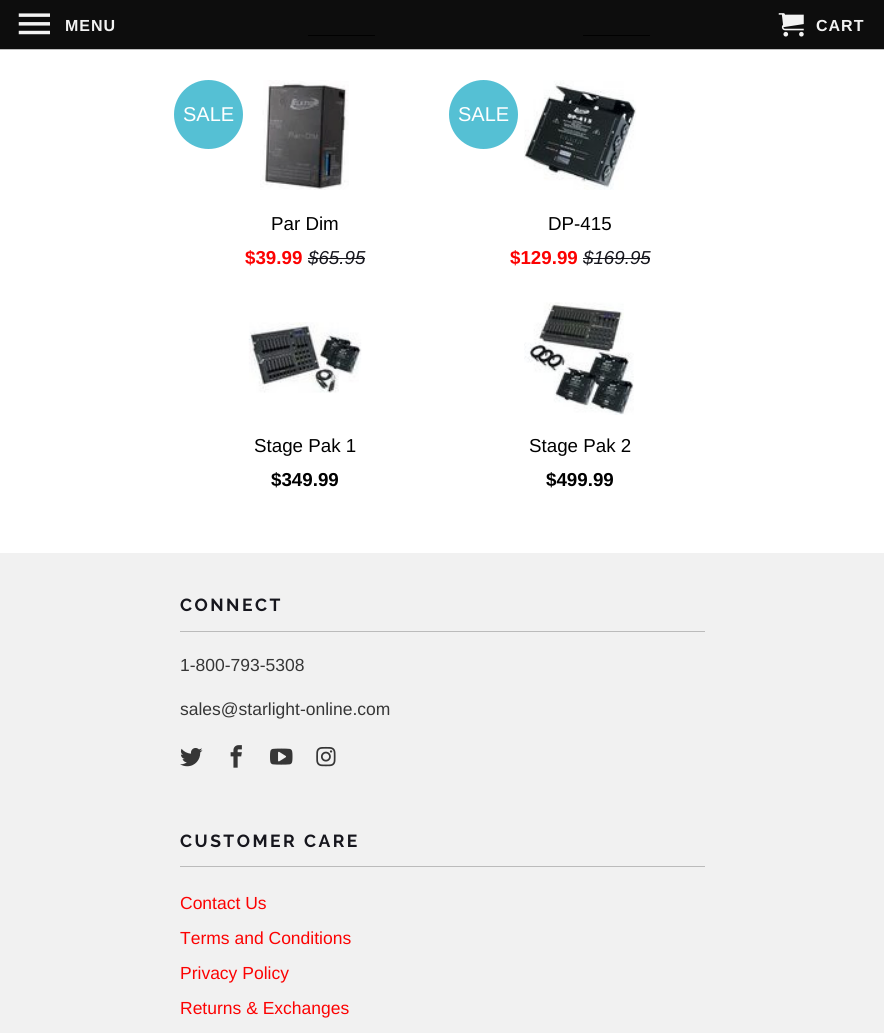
#include <cairo.h>
#include <math.h>
#include <stddef.h>

static cairo_t *ctx;

static void use_color(int r, int g, int b) {
    cairo_set_source_rgb(ctx, r / 255.0, g / 255.0, b / 255.0);
}

static void spaced_text(double x, double y, const char *s, double letter, double word) {
    cairo_move_to(ctx, x, y);
    while (*s) {
        char ch[5] = {0};
        int n = 0;
        do ch[n++] = *s++; while ((*s & 0xC0) == 0x80);
        cairo_show_text(ctx, ch);
        cairo_rel_move_to(ctx, letter + word * (*ch == ' '), 0);
    }
}

static void picture(const char *path, double x, double y, double w, double h) {
    cairo_surface_t *image = cairo_image_surface_create_from_png(path);
    cairo_save(ctx);
    cairo_set_source_surface(ctx, image, x, y);
    cairo_rectangle(ctx, x, y, w, h);
    cairo_fill(ctx);
    cairo_restore(ctx);
    cairo_surface_destroy(image);
}

int main(void) {
    cairo_surface_t *surface = cairo_image_surface_create(CAIRO_FORMAT_RGB24, 884, 1033);
    ctx = cairo_create(surface);
    cairo_font_options_t *options = cairo_font_options_create();
    cairo_font_options_set_hint_metrics(options, CAIRO_HINT_METRICS_OFF);
    cairo_font_options_set_hint_style(options, CAIRO_HINT_STYLE_NONE);
    cairo_set_font_options(ctx, options);
    cairo_set_miter_limit(ctx, 4);
    use_color(255, 255, 255);
    cairo_paint(ctx);
    use_color(13, 13, 13);
    cairo_rectangle(ctx, 0, 0, 884, 49);
    cairo_fill(ctx);
    use_color(190, 190, 190);
    cairo_rectangle(ctx, 0, 49, 884, 1);
    cairo_fill(ctx);
    picture("img1.png", 18, 13, 32, 22);
    cairo_select_font_face(ctx, "Liberation Sans", CAIRO_FONT_SLANT_NORMAL, CAIRO_FONT_WEIGHT_BOLD);
    cairo_set_font_size(ctx, 16);
    use_color(242, 242, 242);
    spaced_text(65, 31, "MENU", 1, 0);
    picture("img2.png", 778, 13, 26, 24);
    spaced_text(816, 31, "CART", 1, 0);
    use_color(1, 1, 1);
    cairo_rectangle(ctx, 308, 35, 67, 1);
    cairo_fill(ctx);
    cairo_rectangle(ctx, 583, 35, 67, 1);
    cairo_fill(ctx);
    use_color(85, 192, 212);
    cairo_arc(ctx, 208.5, 114.5, 34.5, 0, 2 * M_PI);
    cairo_fill(ctx);
    cairo_select_font_face(ctx, "Liberation Sans", CAIRO_FONT_SLANT_NORMAL, CAIRO_FONT_WEIGHT_NORMAL);
    cairo_set_font_size(ctx, 20);
    use_color(255, 255, 255);
    cairo_move_to(ctx, 183, 121);
    cairo_show_text(ctx, "SALE");
    picture("img3.png", 260, 80, 89, 110);
    cairo_set_font_size(ctx, 18.75);
    use_color(0, 0, 0);
    cairo_move_to(ctx, 271, 230);
    cairo_show_text(ctx, "Par Dim");
    cairo_select_font_face(ctx, "Liberation Sans", CAIRO_FONT_SLANT_NORMAL, CAIRO_FONT_WEIGHT_BOLD);
    use_color(252, 2, 2);
    cairo_move_to(ctx, 245, 264);
    cairo_show_text(ctx, "$39.99");
    cairo_select_font_face(ctx, "Liberation Sans", CAIRO_FONT_SLANT_ITALIC, CAIRO_FONT_WEIGHT_NORMAL);
    use_color(22, 22, 29);
    cairo_move_to(ctx, 308, 264);
    cairo_show_text(ctx, "$65.95");
    cairo_rectangle(ctx, 308, 258, 57, 1);
    cairo_fill(ctx);
    use_color(85, 192, 212);
    cairo_arc(ctx, 483.5, 114.5, 34.5, 0, 2 * M_PI);
    cairo_fill(ctx);
    cairo_select_font_face(ctx, "Liberation Sans", CAIRO_FONT_SLANT_NORMAL, CAIRO_FONT_WEIGHT_NORMAL);
    cairo_set_font_size(ctx, 20);
    use_color(255, 255, 255);
    cairo_move_to(ctx, 458, 121);
    cairo_show_text(ctx, "SALE");
    picture("img4.png", 524, 80, 113, 110);
    cairo_set_font_size(ctx, 18.75);
    use_color(0, 0, 0);
    cairo_move_to(ctx, 548, 230);
    cairo_show_text(ctx, "DP-415");
    cairo_select_font_face(ctx, "Liberation Sans", CAIRO_FONT_SLANT_NORMAL, CAIRO_FONT_WEIGHT_BOLD);
    use_color(252, 2, 2);
    cairo_move_to(ctx, 510, 264);
    cairo_show_text(ctx, "$129.99");
    cairo_select_font_face(ctx, "Liberation Sans", CAIRO_FONT_SLANT_ITALIC, CAIRO_FONT_WEIGHT_NORMAL);
    use_color(22, 22, 29);
    cairo_move_to(ctx, 583, 264);
    cairo_show_text(ctx, "$169.95");
    cairo_rectangle(ctx, 583, 258, 67, 1);
    cairo_fill(ctx);
    picture("img5.png", 248, 322, 114, 71);
    cairo_select_font_face(ctx, "Liberation Sans", CAIRO_FONT_SLANT_NORMAL, CAIRO_FONT_WEIGHT_NORMAL);
    use_color(0, 0, 0);
    cairo_move_to(ctx, 254, 452);
    cairo_show_text(ctx, "Stage Pak 1");
    cairo_select_font_face(ctx, "Liberation Sans", CAIRO_FONT_SLANT_NORMAL, CAIRO_FONT_WEIGHT_BOLD);
    cairo_move_to(ctx, 271, 486);
    cairo_show_text(ctx, "$349.99");
    picture("img6.png", 524, 302, 110, 113);
    cairo_select_font_face(ctx, "Liberation Sans", CAIRO_FONT_SLANT_NORMAL, CAIRO_FONT_WEIGHT_NORMAL);
    cairo_move_to(ctx, 529, 452);
    cairo_show_text(ctx, "Stage Pak 2");
    cairo_select_font_face(ctx, "Liberation Sans", CAIRO_FONT_SLANT_NORMAL, CAIRO_FONT_WEIGHT_BOLD);
    cairo_move_to(ctx, 546, 486);
    cairo_show_text(ctx, "$499.99");
    use_color(241, 241, 241);
    cairo_rectangle(ctx, 0, 553, 884, 480);
    cairo_fill(ctx);
    use_color(187, 187, 187);
    cairo_rectangle(ctx, 180, 631, 525, 1);
    cairo_fill(ctx);
    cairo_select_font_face(ctx, "Raleway", CAIRO_FONT_SLANT_NORMAL, CAIRO_FONT_WEIGHT_BOLD);
    cairo_set_font_size(ctx, 17.5);
    use_color(22, 22, 29);
    spaced_text(180, 611, "CONNECT", 2.5, 0);
    cairo_select_font_face(ctx, "Liberation Sans", CAIRO_FONT_SLANT_NORMAL, CAIRO_FONT_WEIGHT_NORMAL);
    use_color(54, 54, 54);
    cairo_move_to(ctx, 180, 671);
    cairo_show_text(ctx, "1-800-793-5308");
    cairo_move_to(ctx, 180, 715);
    cairo_show_text(ctx, "sales@starlight-online.com");
    picture("img7.png", 180, 748, 23, 19);
    picture("img8.png", 230, 745, 12, 23);
    picture("img9.png", 270, 748, 23, 17);
    picture("img10.png", 316, 746, 20, 21);
    use_color(187, 187, 187);
    cairo_rectangle(ctx, 180, 866, 525, 1);
    cairo_fill(ctx);
    cairo_select_font_face(ctx, "Raleway", CAIRO_FONT_SLANT_NORMAL, CAIRO_FONT_WEIGHT_BOLD);
    use_color(22, 22, 29);
    spaced_text(180, 847, "CUSTOMER CARE", 2.5, 0);
    cairo_select_font_face(ctx, "Liberation Sans", CAIRO_FONT_SLANT_NORMAL, CAIRO_FONT_WEIGHT_NORMAL);
    use_color(252, 2, 2);
    cairo_move_to(ctx, 180, 909);
    cairo_show_text(ctx, "Contact Us");
    cairo_move_to(ctx, 180, 944);
    cairo_show_text(ctx, "Terms and Conditions");
    cairo_move_to(ctx, 180, 979);
    cairo_show_text(ctx, "Privacy Policy");
    cairo_move_to(ctx, 180, 1014);
    cairo_show_text(ctx, "Returns & Exchanges");
    cairo_surface_write_to_png(surface, "result.png");
    cairo_font_options_destroy(options);
    cairo_destroy(ctx);
    cairo_surface_destroy(surface);
    return 0;
}
